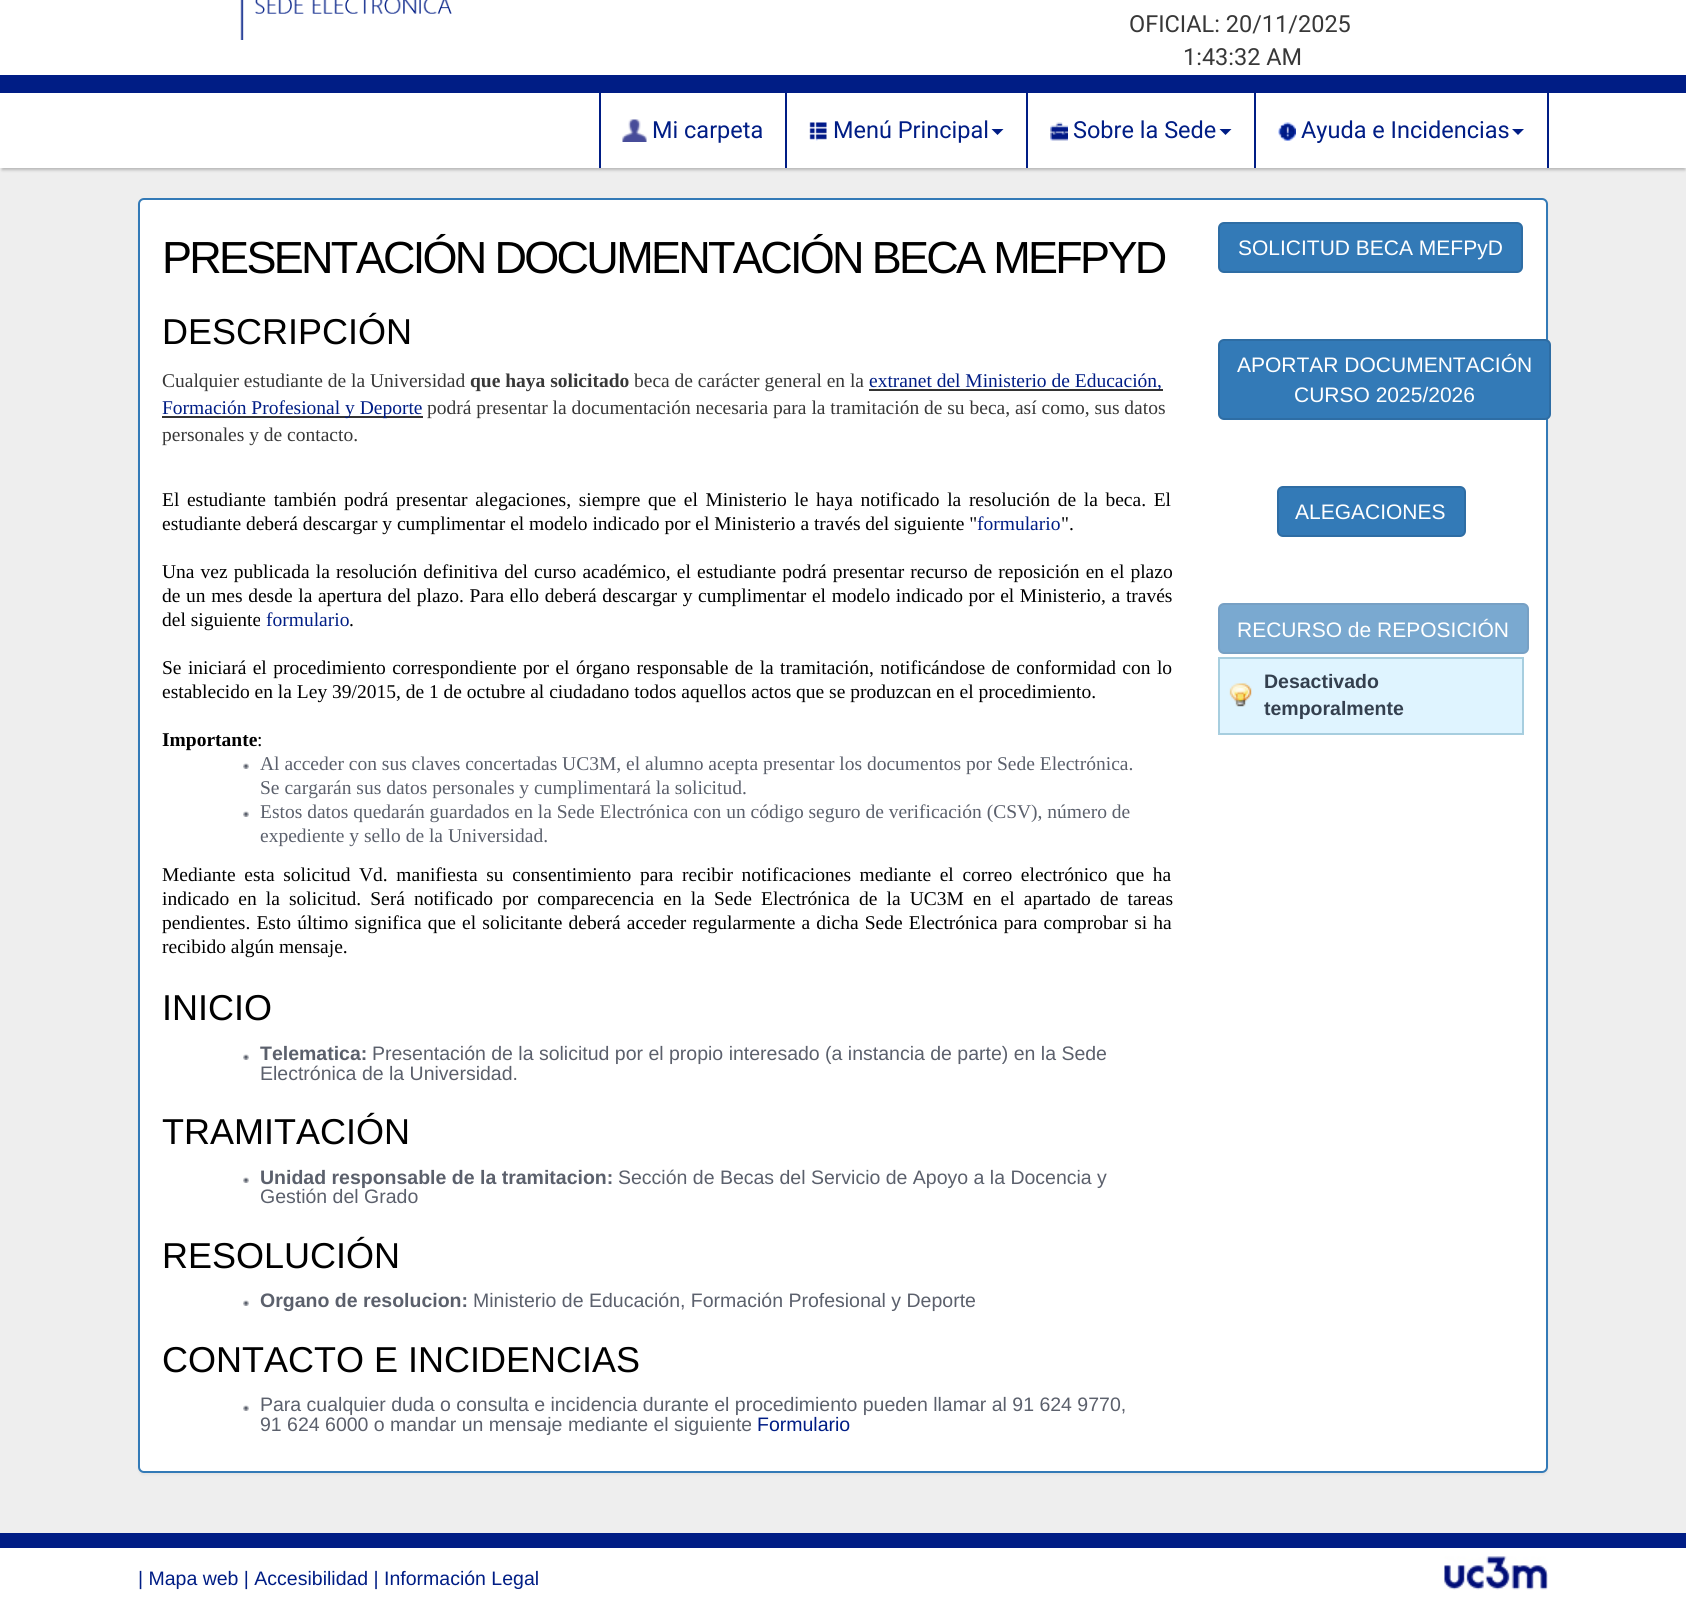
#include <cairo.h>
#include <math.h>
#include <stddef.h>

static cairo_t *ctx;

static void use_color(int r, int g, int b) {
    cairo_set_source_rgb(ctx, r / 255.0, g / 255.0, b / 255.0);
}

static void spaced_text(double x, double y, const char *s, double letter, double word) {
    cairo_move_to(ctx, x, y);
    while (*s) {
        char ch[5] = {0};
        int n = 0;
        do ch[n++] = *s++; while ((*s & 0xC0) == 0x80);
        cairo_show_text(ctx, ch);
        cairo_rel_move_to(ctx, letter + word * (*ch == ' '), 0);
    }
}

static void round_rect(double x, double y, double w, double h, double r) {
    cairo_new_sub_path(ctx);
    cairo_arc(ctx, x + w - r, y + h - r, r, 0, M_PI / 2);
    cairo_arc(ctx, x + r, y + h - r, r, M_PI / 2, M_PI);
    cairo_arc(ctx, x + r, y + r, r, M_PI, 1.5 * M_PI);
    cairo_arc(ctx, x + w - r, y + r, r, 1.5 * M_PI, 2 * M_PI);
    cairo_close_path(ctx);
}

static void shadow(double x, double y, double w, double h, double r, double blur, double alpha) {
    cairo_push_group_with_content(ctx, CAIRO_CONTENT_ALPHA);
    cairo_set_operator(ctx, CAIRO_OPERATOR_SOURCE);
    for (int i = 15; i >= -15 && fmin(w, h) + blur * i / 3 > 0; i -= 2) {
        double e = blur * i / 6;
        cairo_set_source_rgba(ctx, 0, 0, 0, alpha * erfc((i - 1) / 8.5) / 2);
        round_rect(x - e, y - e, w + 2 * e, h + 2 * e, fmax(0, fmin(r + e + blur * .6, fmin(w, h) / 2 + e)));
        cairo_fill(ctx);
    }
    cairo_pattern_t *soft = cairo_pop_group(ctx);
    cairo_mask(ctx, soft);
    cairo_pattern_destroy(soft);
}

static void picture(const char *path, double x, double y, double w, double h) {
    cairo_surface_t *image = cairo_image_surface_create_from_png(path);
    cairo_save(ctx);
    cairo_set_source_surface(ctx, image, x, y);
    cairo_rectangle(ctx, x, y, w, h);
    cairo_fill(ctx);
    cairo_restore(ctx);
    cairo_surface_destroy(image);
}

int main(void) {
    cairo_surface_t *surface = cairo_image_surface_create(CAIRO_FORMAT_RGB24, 1686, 1623);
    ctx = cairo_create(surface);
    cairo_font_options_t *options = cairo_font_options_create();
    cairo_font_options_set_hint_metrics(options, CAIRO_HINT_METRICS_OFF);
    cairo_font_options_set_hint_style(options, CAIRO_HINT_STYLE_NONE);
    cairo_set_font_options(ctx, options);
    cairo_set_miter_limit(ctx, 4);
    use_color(255, 255, 255);
    cairo_paint(ctx);
    use_color(0, 29, 133);
    cairo_rectangle(ctx, 0, 75, 1686, 18);
    cairo_fill(ctx);
    picture("img1.png", 240, 0, 212, 40);
    cairo_select_font_face(ctx, "Roboto", CAIRO_FONT_SLANT_NORMAL, CAIRO_FONT_WEIGHT_NORMAL);
    cairo_set_font_size(ctx, 23.5);
    use_color(56, 56, 56);
    cairo_move_to(ctx, 1129, 32);
    cairo_show_text(ctx, "OFICIAL: 20/11/2025");
    cairo_move_to(ctx, 1183, 65);
    cairo_show_text(ctx, "1:43:32 AM");
    use_color(238, 238, 238);
    cairo_rectangle(ctx, 0, 168, 1686, 1365);
    cairo_fill(ctx);
    cairo_save(ctx);
    cairo_rectangle(ctx, 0, 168, 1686, 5);
    cairo_clip(ctx);
    use_color(183, 183, 183);
    shadow(2, 98, 1683, 72, 0, 1.5, 1);
    cairo_restore(ctx);
    use_color(0, 29, 133);
    cairo_rectangle(ctx, 785, 93, 2, 75);
    cairo_fill(ctx);
    cairo_rectangle(ctx, 599, 93, 2, 75);
    cairo_fill(ctx);
    picture("img2.png", 622, 119, 25, 23);
    cairo_move_to(ctx, 652, 138);
    cairo_show_text(ctx, "Mi carpeta");
    cairo_rectangle(ctx, 1026, 93, 2, 75);
    cairo_fill(ctx);
    picture("img3.png", 809, 122, 18, 19);
    cairo_move_to(ctx, 833, 138);
    cairo_show_text(ctx, "Menú Principal");
    cairo_new_path(ctx);
    cairo_move_to(ctx, 991.5, 129);
    cairo_line_to(ctx, 1003.5, 129);
    cairo_line_to(ctx, 997.5, 135);
    cairo_close_path(ctx);
    cairo_fill(ctx);
    cairo_rectangle(ctx, 1254, 93, 2, 75);
    cairo_fill(ctx);
    picture("img4.png", 1050, 122, 18, 19);
    cairo_move_to(ctx, 1073, 138);
    cairo_show_text(ctx, "Sobre la Sede");
    cairo_new_path(ctx);
    cairo_move_to(ctx, 1219.5, 129);
    cairo_line_to(ctx, 1231.5, 129);
    cairo_line_to(ctx, 1225.5, 135);
    cairo_close_path(ctx);
    cairo_fill(ctx);
    cairo_rectangle(ctx, 1547, 93, 2, 75);
    cairo_fill(ctx);
    picture("img5.png", 1278, 122, 18, 19);
    cairo_move_to(ctx, 1301, 138);
    cairo_show_text(ctx, "Ayuda e Incidencias");
    cairo_new_path(ctx);
    cairo_move_to(ctx, 1512, 129);
    cairo_line_to(ctx, 1524, 129);
    cairo_line_to(ctx, 1518, 135);
    cairo_close_path(ctx);
    cairo_fill(ctx);
    use_color(0, 0, 0);
    shadow(138, 200, 1410, 1275, 6, 1, 0.05);
    use_color(255, 255, 255);
    round_rect(139, 199, 1408, 1273, 5);
    cairo_fill_preserve(ctx);
    use_color(51, 122, 183);
    cairo_stroke(ctx);
    cairo_select_font_face(ctx, "Liberation Sans", CAIRO_FONT_SLANT_NORMAL, CAIRO_FONT_WEIGHT_NORMAL);
    cairo_set_font_size(ctx, 45);
    use_color(0, 0, 0);
    spaced_text(162, 273, "PRESENTACIÓN DOCUMENTACIÓN BECA MEFPYD", -2.7, 0);
    cairo_set_font_size(ctx, 36);
    cairo_move_to(ctx, 162, 344);
    cairo_show_text(ctx, "DESCRIPCIÓN");
    cairo_select_font_face(ctx, "Liberation Serif", CAIRO_FONT_SLANT_NORMAL, CAIRO_FONT_WEIGHT_NORMAL);
    cairo_set_font_size(ctx, 19.5);
    use_color(56, 56, 56);
    cairo_move_to(ctx, 162, 387);
    cairo_show_text(ctx, "Cualquier estudiante de la Universidad");
    cairo_select_font_face(ctx, "Liberation Serif", CAIRO_FONT_SLANT_NORMAL, CAIRO_FONT_WEIGHT_BOLD);
    cairo_move_to(ctx, 470, 387);
    cairo_show_text(ctx, "que haya solicitado");
    cairo_select_font_face(ctx, "Liberation Serif", CAIRO_FONT_SLANT_NORMAL, CAIRO_FONT_WEIGHT_NORMAL);
    cairo_move_to(ctx, 634, 387);
    cairo_show_text(ctx, "beca de carácter general en la");
    use_color(51, 51, 51);
    cairo_rectangle(ctx, 869, 389, 294, 2);
    cairo_fill(ctx);
    use_color(0, 29, 133);
    cairo_move_to(ctx, 869, 387);
    cairo_show_text(ctx, "extranet del Ministerio de Educación,");
    use_color(51, 51, 51);
    cairo_rectangle(ctx, 162, 416, 261, 2);
    cairo_fill(ctx);
    use_color(0, 29, 133);
    cairo_move_to(ctx, 162, 414);
    cairo_show_text(ctx, "Formación Profesional y Deporte");
    use_color(56, 56, 56);
    cairo_move_to(ctx, 427, 414);
    cairo_show_text(ctx, "podrá presentar la documentación necesaria para la tramitación de su beca, así como, sus datos");
    cairo_move_to(ctx, 162, 441);
    cairo_show_text(ctx, "personales y de contacto.");
    use_color(0, 0, 0);
    spaced_text(162, 506, "El estudiante también podrá presentar alegaciones, siempre que el Ministerio le haya notificado la resolución de la beca. El", 0, 2.75);
    cairo_move_to(ctx, 162, 530);
    cairo_show_text(ctx, "estudiante deberá descargar y cumplimentar el modelo indicado por el Ministerio a través del siguiente \"");
    use_color(0, 29, 133);
    cairo_move_to(ctx, 977, 530);
    cairo_show_text(ctx, "formulario");
    use_color(0, 0, 0);
    cairo_move_to(ctx, 1061, 530);
    cairo_show_text(ctx, "\".");
    spaced_text(162, 578, "Una vez publicada la resolución definitiva del curso académico, el estudiante podrá presentar recurso de reposición en el plazo", 0, 1.25);
    spaced_text(162, 602, "de un mes desde la apertura del plazo. Para ello deberá descargar y cumplimentar el modelo indicado por el Ministerio, a través", 0, 0.75);
    cairo_move_to(ctx, 162, 626);
    cairo_show_text(ctx, "del siguiente");
    use_color(0, 29, 133);
    cairo_move_to(ctx, 266, 626);
    cairo_show_text(ctx, "formulario");
    use_color(0, 0, 0);
    cairo_move_to(ctx, 349, 626);
    cairo_show_text(ctx, ".");
    spaced_text(162, 674, "Se iniciará el procedimiento correspondiente por el órgano responsable de la tramitación, notificándose de conformidad con lo", 0, 1.5);
    cairo_move_to(ctx, 162, 698);
    cairo_show_text(ctx, "establecido en la Ley 39/2015, de 1 de octubre al ciudadano todos aquellos actos que se produzcan en el procedimiento.");
    cairo_select_font_face(ctx, "Liberation Serif", CAIRO_FONT_SLANT_NORMAL, CAIRO_FONT_WEIGHT_BOLD);
    cairo_move_to(ctx, 162, 746);
    cairo_show_text(ctx, "Importante");
    cairo_select_font_face(ctx, "Liberation Serif", CAIRO_FONT_SLANT_NORMAL, CAIRO_FONT_WEIGHT_NORMAL);
    cairo_move_to(ctx, 257, 746);
    cairo_show_text(ctx, ":");
    picture("img6.png", 243, 763, 6, 6);
    use_color(91, 96, 108);
    cairo_move_to(ctx, 260, 770);
    cairo_show_text(ctx, "Al acceder con sus claves concertadas UC3M, el alumno acepta presentar los documentos por Sede Electrónica.");
    cairo_move_to(ctx, 260, 794);
    cairo_show_text(ctx, "Se cargarán sus datos personales y cumplimentará la solicitud.");
    picture("img6.png", 243, 811, 6, 6);
    cairo_move_to(ctx, 260, 818);
    cairo_show_text(ctx, "Estos datos quedarán guardados en la Sede Electrónica con un código seguro de verificación (CSV), número de");
    cairo_move_to(ctx, 260, 842);
    cairo_show_text(ctx, "expediente y sello de la Universidad.");
    use_color(0, 0, 0);
    spaced_text(162, 881, "Mediante esta solicitud Vd. manifiesta su consentimiento para recibir notificaciones mediante el correo electrónico que ha", 0, 3.75);
    spaced_text(162, 905, "indicado en la solicitud. Será notificado por comparecencia en la Sede Electrónica de la UC3M en el apartado de tareas", 0, 4.25);
    spaced_text(162, 929, "pendientes. Esto último significa que el solicitante deberá acceder regularmente a dicha Sede Electrónica para comprobar si ha", 0, 1.3);
    cairo_move_to(ctx, 162, 953);
    cairo_show_text(ctx, "recibido algún mensaje.");
    cairo_select_font_face(ctx, "Liberation Sans", CAIRO_FONT_SLANT_NORMAL, CAIRO_FONT_WEIGHT_NORMAL);
    cairo_set_font_size(ctx, 36);
    cairo_move_to(ctx, 162, 1020);
    cairo_show_text(ctx, "INICIO");
    picture("img6.png", 243, 1054, 6, 6);
    cairo_select_font_face(ctx, "Liberation Sans", CAIRO_FONT_SLANT_NORMAL, CAIRO_FONT_WEIGHT_BOLD);
    cairo_set_font_size(ctx, 19.5);
    use_color(91, 96, 108);
    cairo_move_to(ctx, 260, 1060);
    cairo_show_text(ctx, "Telematica:");
    cairo_select_font_face(ctx, "Liberation Sans", CAIRO_FONT_SLANT_NORMAL, CAIRO_FONT_WEIGHT_NORMAL);
    cairo_move_to(ctx, 372, 1060);
    cairo_show_text(ctx, "Presentación de la solicitud por el propio interesado (a instancia de parte) en la Sede");
    cairo_move_to(ctx, 260, 1080);
    cairo_show_text(ctx, "Electrónica de la Universidad.");
    cairo_set_font_size(ctx, 36);
    use_color(0, 0, 0);
    cairo_move_to(ctx, 162, 1144);
    cairo_show_text(ctx, "TRAMITACIÓN");
    picture("img6.png", 243, 1177, 6, 6);
    cairo_select_font_face(ctx, "Liberation Sans", CAIRO_FONT_SLANT_NORMAL, CAIRO_FONT_WEIGHT_BOLD);
    cairo_set_font_size(ctx, 19.5);
    use_color(91, 96, 108);
    cairo_move_to(ctx, 260, 1184);
    cairo_show_text(ctx, "Unidad responsable de la tramitacion:");
    cairo_select_font_face(ctx, "Liberation Sans", CAIRO_FONT_SLANT_NORMAL, CAIRO_FONT_WEIGHT_NORMAL);
    cairo_move_to(ctx, 618, 1184);
    cairo_show_text(ctx, "Sección de Becas del Servicio de Apoyo a la Docencia y");
    cairo_move_to(ctx, 260, 1203);
    cairo_show_text(ctx, "Gestión del Grado");
    cairo_set_font_size(ctx, 36);
    use_color(0, 0, 0);
    cairo_move_to(ctx, 162, 1268);
    cairo_show_text(ctx, "RESOLUCIÓN");
    picture("img6.png", 243, 1300, 6, 6);
    cairo_select_font_face(ctx, "Liberation Sans", CAIRO_FONT_SLANT_NORMAL, CAIRO_FONT_WEIGHT_BOLD);
    cairo_set_font_size(ctx, 19.5);
    use_color(91, 96, 108);
    cairo_move_to(ctx, 260, 1307);
    cairo_show_text(ctx, "Organo de resolucion:");
    cairo_select_font_face(ctx, "Liberation Sans", CAIRO_FONT_SLANT_NORMAL, CAIRO_FONT_WEIGHT_NORMAL);
    cairo_move_to(ctx, 473, 1307);
    cairo_show_text(ctx, "Ministerio de Educación, Formación Profesional y Deporte");
    cairo_set_font_size(ctx, 36);
    use_color(0, 0, 0);
    cairo_move_to(ctx, 162, 1372);
    cairo_show_text(ctx, "CONTACTO E INCIDENCIAS");
    picture("img6.png", 243, 1405, 6, 6);
    cairo_set_font_size(ctx, 19.5);
    use_color(91, 96, 108);
    cairo_move_to(ctx, 260, 1411);
    cairo_show_text(ctx, "Para cualquier duda o consulta e incidencia durante el procedimiento pueden llamar al 91 624 9770,");
    cairo_move_to(ctx, 260, 1431);
    cairo_show_text(ctx, "91 624 6000 o mandar un mensaje mediante el siguiente");
    use_color(0, 29, 133);
    cairo_move_to(ctx, 757, 1431);
    cairo_show_text(ctx, "Formulario");
    use_color(51, 122, 183);
    round_rect(1219, 223, 303, 49, 5);
    cairo_fill_preserve(ctx);
    use_color(46, 109, 164);
    cairo_stroke(ctx);
    cairo_set_font_size(ctx, 21);
    use_color(255, 255, 255);
    cairo_move_to(ctx, 1238, 255);
    cairo_show_text(ctx, "SOLICITUD BECA MEFPyD");
    use_color(51, 122, 183);
    round_rect(1219, 340, 331, 79, 5);
    cairo_fill_preserve(ctx);
    use_color(46, 109, 164);
    cairo_stroke(ctx);
    use_color(255, 255, 255);
    cairo_move_to(ctx, 1237, 372);
    cairo_show_text(ctx, "APORTAR DOCUMENTACIÓN");
    cairo_move_to(ctx, 1294, 402);
    cairo_show_text(ctx, "CURSO 2025/2026");
    use_color(51, 122, 183);
    round_rect(1278, 487, 187, 49, 5);
    cairo_fill_preserve(ctx);
    use_color(46, 109, 164);
    cairo_stroke(ctx);
    use_color(255, 255, 255);
    cairo_move_to(ctx, 1295, 519);
    cairo_show_text(ctx, "ALEGACIONES");
    use_color(122, 169, 208);
    round_rect(1219, 604, 309, 49, 5);
    cairo_fill_preserve(ctx);
    use_color(119, 160, 196);
    cairo_stroke(ctx);
    use_color(255, 255, 255);
    cairo_move_to(ctx, 1237, 637);
    cairo_show_text(ctx, "RECURSO de REPOSICIÓN");
    use_color(223, 244, 255);
    cairo_rectangle(ctx, 1220, 659, 302, 74);
    cairo_fill(ctx);
    picture("img7.png", 1229, 683, 23, 24);
    cairo_rectangle(ctx, 1219, 658, 304, 76);
    use_color(167, 206, 223);
    cairo_stroke(ctx);
    cairo_select_font_face(ctx, "Liberation Sans", CAIRO_FONT_SLANT_NORMAL, CAIRO_FONT_WEIGHT_BOLD);
    cairo_set_font_size(ctx, 19.5);
    use_color(52, 64, 79);
    cairo_move_to(ctx, 1264, 688);
    cairo_show_text(ctx, "Desactivado");
    cairo_move_to(ctx, 1264, 715);
    cairo_show_text(ctx, "temporalmente");
    use_color(0, 29, 133);
    cairo_rectangle(ctx, 0, 1533, 1686, 15);
    cairo_fill(ctx);
    cairo_select_font_face(ctx, "Liberation Sans", CAIRO_FONT_SLANT_NORMAL, CAIRO_FONT_WEIGHT_NORMAL);
    cairo_move_to(ctx, 138, 1585);
    cairo_show_text(ctx, "| Mapa web | Accesibilidad | Información Legal");
    picture("img8.png", 1444, 1556, 104, 34);
    cairo_surface_write_to_png(surface, "result.png");
    cairo_font_options_destroy(options);
    cairo_destroy(ctx);
    cairo_surface_destroy(surface);
    return 0;
}
